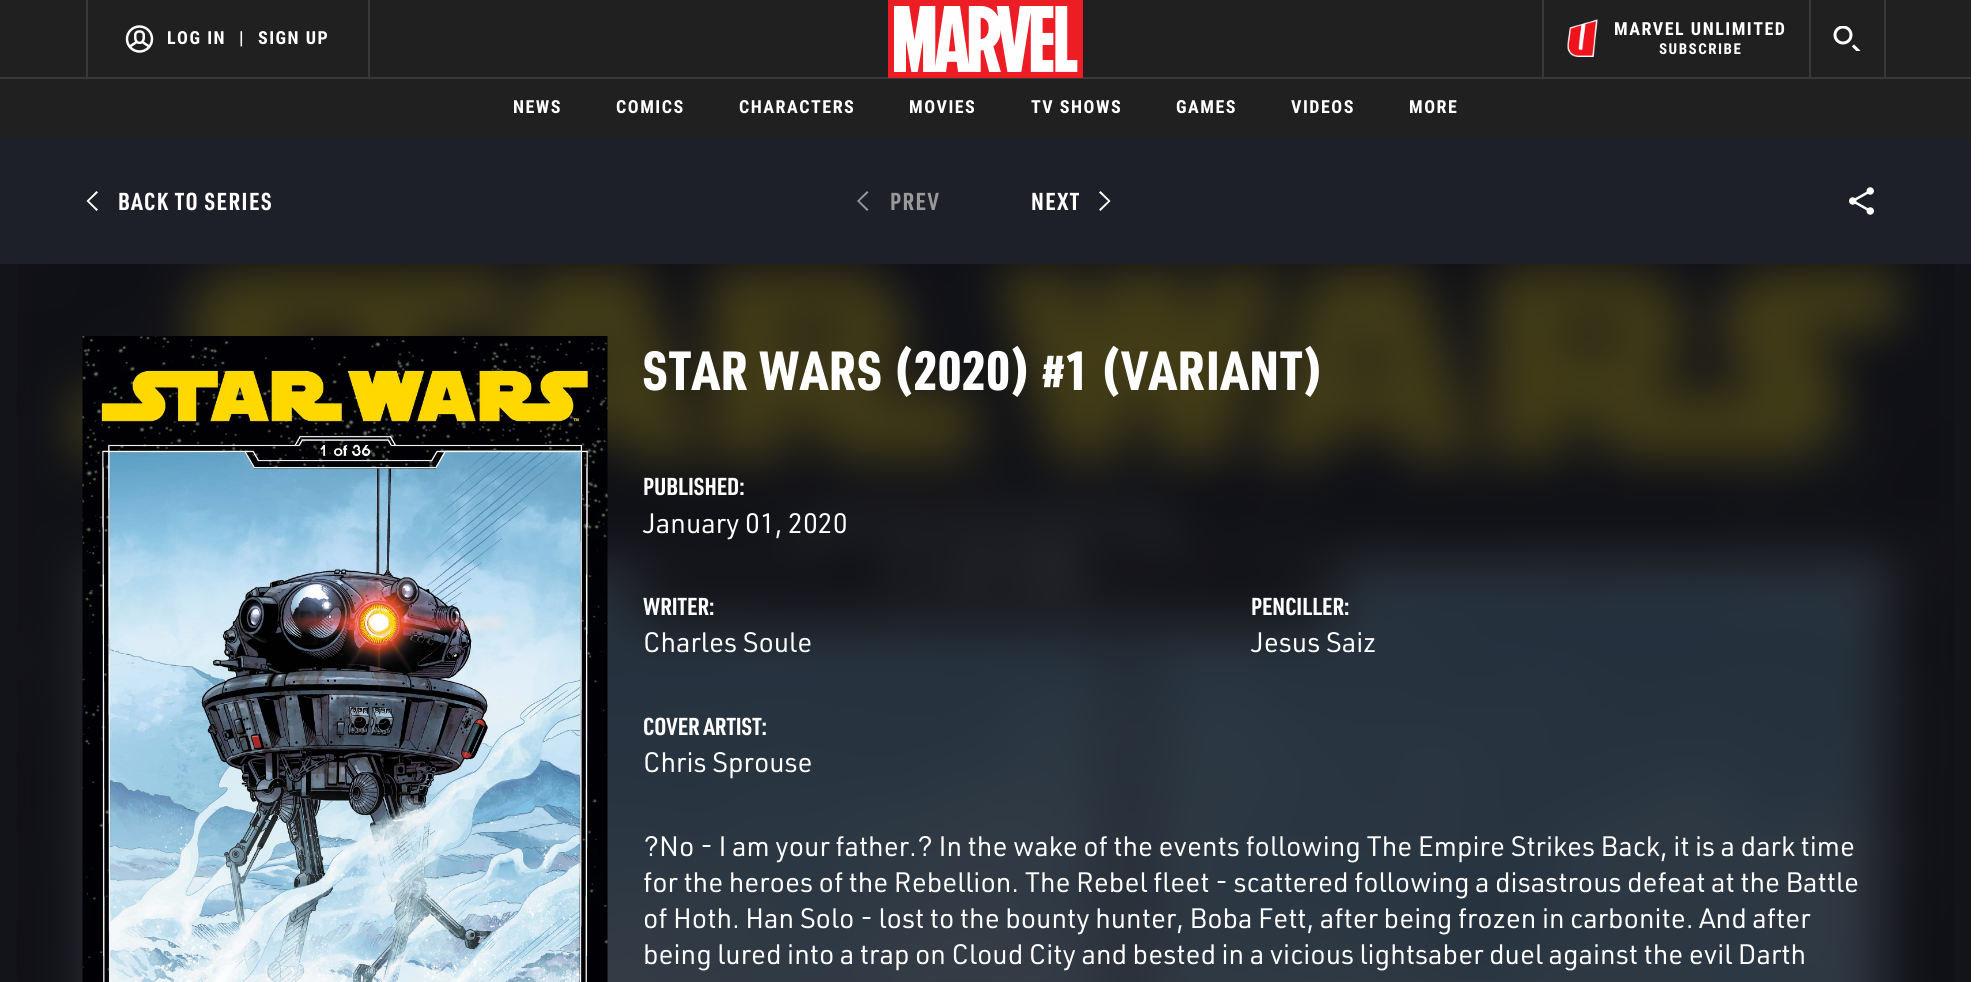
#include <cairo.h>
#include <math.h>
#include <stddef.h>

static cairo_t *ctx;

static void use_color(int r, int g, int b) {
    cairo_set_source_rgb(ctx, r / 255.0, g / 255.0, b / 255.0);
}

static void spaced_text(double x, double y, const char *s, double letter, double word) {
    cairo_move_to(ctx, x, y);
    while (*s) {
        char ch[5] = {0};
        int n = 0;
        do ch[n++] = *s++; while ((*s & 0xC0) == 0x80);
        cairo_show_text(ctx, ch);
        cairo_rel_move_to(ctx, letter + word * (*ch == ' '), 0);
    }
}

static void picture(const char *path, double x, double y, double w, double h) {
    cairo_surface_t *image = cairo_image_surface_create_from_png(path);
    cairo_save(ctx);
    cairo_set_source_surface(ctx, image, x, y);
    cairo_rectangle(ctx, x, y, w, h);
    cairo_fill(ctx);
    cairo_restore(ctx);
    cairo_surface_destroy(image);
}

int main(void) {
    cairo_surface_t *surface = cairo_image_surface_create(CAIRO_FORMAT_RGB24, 1985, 982);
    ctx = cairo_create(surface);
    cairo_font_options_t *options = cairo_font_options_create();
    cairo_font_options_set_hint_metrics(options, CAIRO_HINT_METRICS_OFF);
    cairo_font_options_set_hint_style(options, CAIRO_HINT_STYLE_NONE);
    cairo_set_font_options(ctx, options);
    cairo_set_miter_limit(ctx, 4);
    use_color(255, 255, 255);
    cairo_paint(ctx);
    use_color(32, 32, 32);
    cairo_rectangle(ctx, 0, 0, 1971, 138);
    cairo_fill(ctx);
    use_color(57, 57, 57);
    cairo_rectangle(ctx, 0, 77, 1971, 2);
    cairo_fill(ctx);
    cairo_rectangle(ctx, 86, 0, 2, 77);
    cairo_fill(ctx);
    cairo_rectangle(ctx, 368, 0, 2, 77);
    cairo_fill(ctx);
    picture("img1.png", 125, 25, 29, 28);
    cairo_select_font_face(ctx, "Roboto Condensed", CAIRO_FONT_SLANT_NORMAL, CAIRO_FONT_WEIGHT_BOLD);
    cairo_set_font_size(ctx, 18);
    use_color(255, 255, 255);
    spaced_text(167, 44, "LOG IN", 1.5, 0);
    spaced_text(239, 44, "|", 1.5, 0);
    spaced_text(258, 44, "SIGN UP", 1.5, 0);
    picture("img2.png", 888, 0, 195, 78);
    use_color(57, 57, 57);
    cairo_rectangle(ctx, 1542, 0, 2, 77);
    cairo_fill(ctx);
    picture("img3.png", 1567, 19, 31, 38);
    use_color(255, 255, 255);
    spaced_text(1614, 35, "MARVEL UNLIMITED", 1.5, 0);
    cairo_set_font_size(ctx, 15);
    spaced_text(1659, 54, "SUBSCRIBE", 1.5, 0);
    use_color(57, 57, 57);
    cairo_rectangle(ctx, 1884, 0, 2, 77);
    cairo_fill(ctx);
    cairo_rectangle(ctx, 1809, 0, 2, 77);
    cairo_fill(ctx);
    cairo_save(ctx);
    cairo_rectangle(ctx, 1833, 26, 29, 25);
    cairo_clip(ctx);
    cairo_arc(ctx, 1843, 35, 8, 0, 2 * M_PI);
    use_color(255, 255, 255);
    cairo_set_line_width(ctx, 3);
    cairo_stroke(ctx);
    cairo_new_path(ctx);
    cairo_move_to(ctx, 1854, 46.5);
    cairo_line_to(ctx, 1859.5, 52);
    cairo_set_line_cap(ctx, CAIRO_LINE_CAP_SQUARE);
    cairo_stroke(ctx);
    cairo_restore(ctx);
    cairo_set_font_size(ctx, 18);
    use_color(255, 255, 255);
    spaced_text(513, 113, "NEWS", 1.5, 0);
    spaced_text(616, 113, "COMICS", 1.5, 0);
    spaced_text(739, 113, "CHARACTERS", 1.5, 0);
    spaced_text(909, 113, "MOVIES", 1.5, 0);
    spaced_text(1031, 113, "TV SHOWS", 1.5, 0);
    spaced_text(1176, 113, "GAMES", 1.5, 0);
    spaced_text(1291, 113, "VIDEOS", 1.5, 0);
    spaced_text(1409, 113, "MORE", 1.5, 0);
    use_color(19, 20, 26);
    cairo_rectangle(ctx, 0, 264, 1971, 718);
    cairo_fill(ctx);
    use_color(30, 32, 41);
    cairo_rectangle(ctx, 0, 138, 1971, 126);
    cairo_fill(ctx);
    use_color(255, 255, 255);
    cairo_new_path(ctx);
    cairo_move_to(ctx, 96.5, 191);
    cairo_line_to(ctx, 98, 192.5);
    cairo_line_to(ctx, 89, 201);
    cairo_line_to(ctx, 98, 209.5);
    cairo_line_to(ctx, 96.5, 211);
    cairo_line_to(ctx, 86.5, 201);
    cairo_close_path(ctx);
    cairo_fill(ctx);
    cairo_select_font_face(ctx, "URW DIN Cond", CAIRO_FONT_SLANT_NORMAL, CAIRO_FONT_WEIGHT_BOLD);
    cairo_set_font_size(ctx, 24);
    spaced_text(118, 210, "BACK TO SERIES", 1.5, 0);
    use_color(153, 153, 153);
    cairo_new_path(ctx);
    cairo_move_to(ctx, 867, 191);
    cairo_line_to(ctx, 868.5, 192.5);
    cairo_line_to(ctx, 859.5, 201);
    cairo_line_to(ctx, 868.5, 209.5);
    cairo_line_to(ctx, 867, 211);
    cairo_line_to(ctx, 857, 201);
    cairo_close_path(ctx);
    cairo_fill(ctx);
    spaced_text(890, 210, "PREV", 1.5, 0);
    use_color(255, 255, 255);
    spaced_text(1031, 210, "NEXT", 1.5, 0);
    cairo_new_path(ctx);
    cairo_move_to(ctx, 1100.5, 191);
    cairo_line_to(ctx, 1099, 192.5);
    cairo_line_to(ctx, 1108, 201);
    cairo_line_to(ctx, 1099, 209.5);
    cairo_line_to(ctx, 1100.5, 211);
    cairo_line_to(ctx, 1110.5, 201);
    cairo_close_path(ctx);
    cairo_fill(ctx);
    picture("img4.png", 1849, 187, 25, 28);
    picture("img5.png", 17, 264, 1937, 718);
    picture("img6.png", 82, 336, 526, 646);
    cairo_select_font_face(ctx, "URW DIN Cond Black", CAIRO_FONT_SLANT_NORMAL, CAIRO_FONT_WEIGHT_NORMAL);
    cairo_set_font_size(ctx, 54);
    spaced_text(643, 390, "STAR WARS (2020) #1 (VARIANT)", 1.5, 0);
    cairo_select_font_face(ctx, "URW DIN Cond", CAIRO_FONT_SLANT_NORMAL, CAIRO_FONT_WEIGHT_BOLD);
    cairo_set_font_size(ctx, 24);
    cairo_move_to(ctx, 643, 495);
    cairo_show_text(ctx, "PUBLISHED:");
    cairo_select_font_face(ctx, "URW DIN", CAIRO_FONT_SLANT_NORMAL, CAIRO_FONT_WEIGHT_NORMAL);
    cairo_set_font_size(ctx, 27.6);
    cairo_move_to(ctx, 643, 533);
    cairo_show_text(ctx, "January 01, 2020");
    cairo_select_font_face(ctx, "URW DIN Cond", CAIRO_FONT_SLANT_NORMAL, CAIRO_FONT_WEIGHT_BOLD);
    cairo_set_font_size(ctx, 24);
    cairo_move_to(ctx, 643, 615);
    cairo_show_text(ctx, "WRITER:");
    cairo_select_font_face(ctx, "URW DIN", CAIRO_FONT_SLANT_NORMAL, CAIRO_FONT_WEIGHT_NORMAL);
    cairo_set_font_size(ctx, 27.6);
    cairo_move_to(ctx, 643, 652);
    cairo_show_text(ctx, "Charles Soule");
    cairo_select_font_face(ctx, "URW DIN Cond", CAIRO_FONT_SLANT_NORMAL, CAIRO_FONT_WEIGHT_BOLD);
    cairo_set_font_size(ctx, 24);
    cairo_move_to(ctx, 1251, 615);
    cairo_show_text(ctx, "PENCILLER:");
    cairo_select_font_face(ctx, "URW DIN", CAIRO_FONT_SLANT_NORMAL, CAIRO_FONT_WEIGHT_NORMAL);
    cairo_set_font_size(ctx, 27.6);
    cairo_move_to(ctx, 1251, 652);
    cairo_show_text(ctx, "Jesus Saiz");
    cairo_select_font_face(ctx, "URW DIN Cond", CAIRO_FONT_SLANT_NORMAL, CAIRO_FONT_WEIGHT_BOLD);
    cairo_set_font_size(ctx, 24);
    cairo_move_to(ctx, 643, 735);
    cairo_show_text(ctx, "COVER ARTIST:");
    cairo_select_font_face(ctx, "URW DIN", CAIRO_FONT_SLANT_NORMAL, CAIRO_FONT_WEIGHT_NORMAL);
    cairo_set_font_size(ctx, 27.6);
    cairo_move_to(ctx, 643, 772);
    cairo_show_text(ctx, "Chris Sprouse");
    cairo_move_to(ctx, 643, 856);
    cairo_show_text(ctx, "?No - I am your father.? In the wake of the events following The Empire Strikes Back, it is a dark time");
    cairo_move_to(ctx, 643, 892);
    cairo_show_text(ctx, "for the heroes of the Rebellion. The Rebel fleet - scattered following a disastrous defeat at the Battle");
    cairo_move_to(ctx, 643, 928);
    cairo_show_text(ctx, "of Hoth. Han Solo - lost to the bounty hunter, Boba Fett, after being frozen in carbonite. And after");
    cairo_move_to(ctx, 643, 964);
    cairo_show_text(ctx, "being lured into a trap on Cloud City and bested in a vicious lightsaber duel against the evil Darth");
    cairo_surface_write_to_png(surface, "result.png");
    cairo_font_options_destroy(options);
    cairo_destroy(ctx);
    cairo_surface_destroy(surface);
    return 0;
}
